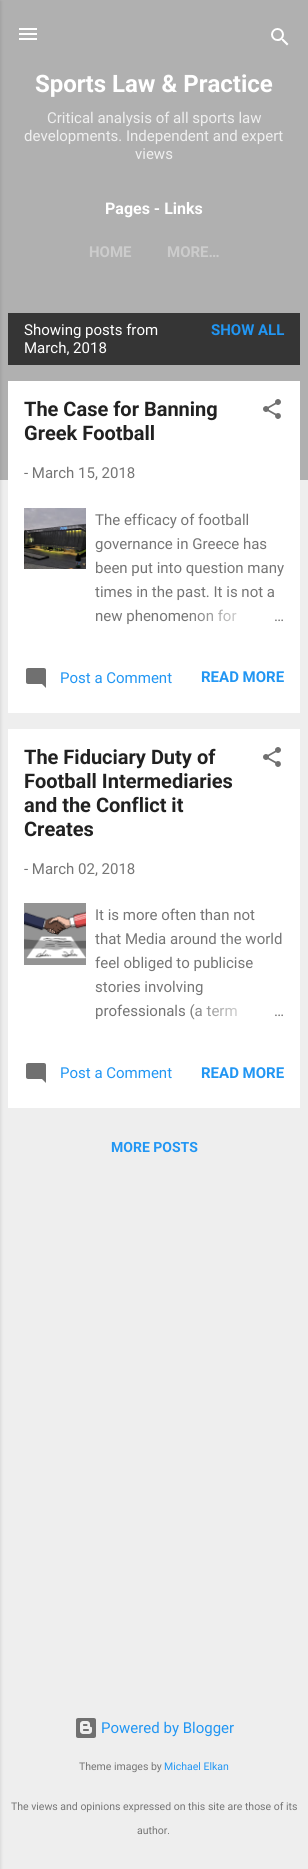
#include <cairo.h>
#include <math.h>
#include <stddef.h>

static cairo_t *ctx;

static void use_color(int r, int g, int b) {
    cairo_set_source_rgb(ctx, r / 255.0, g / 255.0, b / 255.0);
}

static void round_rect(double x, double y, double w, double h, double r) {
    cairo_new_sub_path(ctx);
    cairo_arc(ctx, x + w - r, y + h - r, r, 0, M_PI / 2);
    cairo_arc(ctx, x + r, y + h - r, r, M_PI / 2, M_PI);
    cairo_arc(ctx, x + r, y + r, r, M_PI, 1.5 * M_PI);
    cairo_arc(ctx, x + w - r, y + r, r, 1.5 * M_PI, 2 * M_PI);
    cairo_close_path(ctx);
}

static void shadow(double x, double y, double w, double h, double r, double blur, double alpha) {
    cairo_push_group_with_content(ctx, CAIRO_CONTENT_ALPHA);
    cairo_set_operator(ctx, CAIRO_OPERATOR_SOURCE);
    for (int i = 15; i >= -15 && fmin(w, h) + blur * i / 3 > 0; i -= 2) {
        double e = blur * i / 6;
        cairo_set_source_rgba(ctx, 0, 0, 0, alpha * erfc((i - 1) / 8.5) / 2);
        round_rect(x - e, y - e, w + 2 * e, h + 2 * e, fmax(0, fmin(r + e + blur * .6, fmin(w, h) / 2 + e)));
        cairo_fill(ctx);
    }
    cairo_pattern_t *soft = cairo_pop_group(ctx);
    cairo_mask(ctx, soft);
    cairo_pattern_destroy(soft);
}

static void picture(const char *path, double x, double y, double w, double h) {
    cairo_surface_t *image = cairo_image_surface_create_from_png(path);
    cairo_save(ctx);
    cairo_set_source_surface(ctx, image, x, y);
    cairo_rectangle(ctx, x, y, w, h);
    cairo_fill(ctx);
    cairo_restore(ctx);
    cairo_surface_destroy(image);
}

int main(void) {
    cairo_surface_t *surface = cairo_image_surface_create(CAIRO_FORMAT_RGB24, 308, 1869);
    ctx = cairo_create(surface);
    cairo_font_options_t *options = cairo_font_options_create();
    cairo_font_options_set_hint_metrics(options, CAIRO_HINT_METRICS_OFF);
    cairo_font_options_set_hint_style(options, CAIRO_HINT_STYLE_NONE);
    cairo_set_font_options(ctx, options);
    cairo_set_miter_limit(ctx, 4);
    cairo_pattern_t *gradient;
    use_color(238, 238, 238);
    cairo_paint(ctx);
    use_color(176, 176, 176);
    cairo_rectangle(ctx, 0, 0, 308, 480);
    cairo_fill(ctx);
    use_color(0, 0, 0);
    shadow(-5, 1, 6, 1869, 0, 1.5, 0.1);
    picture("img1.png", 19, 28, 18, 12);
    picture("img2.png", 271, 28, 18, 18);
    cairo_select_font_face(ctx, "Roboto", CAIRO_FONT_SLANT_NORMAL, CAIRO_FONT_WEIGHT_BOLD);
    cairo_set_font_size(ctx, 24);
    use_color(255, 255, 255);
    cairo_move_to(ctx, 35, 92);
    cairo_show_text(ctx, "Sports Law & Practice");
    cairo_select_font_face(ctx, "Roboto", CAIRO_FONT_SLANT_NORMAL, CAIRO_FONT_WEIGHT_NORMAL);
    cairo_set_font_size(ctx, 15);
    use_color(239, 239, 239);
    cairo_move_to(ctx, 47, 123);
    cairo_show_text(ctx, "Critical analysis of all sports law");
    cairo_move_to(ctx, 24, 141);
    cairo_show_text(ctx, "developments. Independent and expert");
    cairo_move_to(ctx, 135, 159);
    cairo_show_text(ctx, "views");
    cairo_select_font_face(ctx, "Roboto", CAIRO_FONT_SLANT_NORMAL, CAIRO_FONT_WEIGHT_BOLD);
    cairo_set_font_size(ctx, 16);
    use_color(255, 255, 255);
    cairo_move_to(ctx, 105, 214);
    cairo_show_text(ctx, "Pages - Links");
    cairo_set_font_size(ctx, 15);
    use_color(204, 204, 204);
    cairo_move_to(ctx, 89, 257);
    cairo_show_text(ctx, "HOME");
    cairo_move_to(ctx, 167, 257);
    cairo_show_text(ctx, "MORE…");
    use_color(53, 53, 53);
    cairo_rectangle(ctx, 8, 313, 292, 52);
    cairo_fill(ctx);
    cairo_select_font_face(ctx, "Roboto", CAIRO_FONT_SLANT_NORMAL, CAIRO_FONT_WEIGHT_NORMAL);
    use_color(255, 255, 255);
    cairo_move_to(ctx, 24, 335);
    cairo_show_text(ctx, "Showing posts from");
    cairo_move_to(ctx, 24, 353);
    cairo_show_text(ctx, "March, 2018");
    cairo_select_font_face(ctx, "Roboto", CAIRO_FONT_SLANT_NORMAL, CAIRO_FONT_WEIGHT_BOLD);
    use_color(33, 150, 243);
    cairo_move_to(ctx, 211, 335);
    cairo_show_text(ctx, "SHOW ALL");
    use_color(255, 255, 255);
    cairo_rectangle(ctx, 8, 381, 292, 332);
    cairo_fill(ctx);
    cairo_set_font_size(ctx, 20);
    use_color(33, 33, 33);
    cairo_move_to(ctx, 24, 416);
    cairo_show_text(ctx, "The Case for Banning");
    cairo_move_to(ctx, 24, 440);
    cairo_show_text(ctx, "Greek Football");
    picture("img3.png", 263, 399, 18, 20);
    cairo_select_font_face(ctx, "Roboto", CAIRO_FONT_SLANT_NORMAL, CAIRO_FONT_WEIGHT_NORMAL);
    cairo_set_font_size(ctx, 15);
    use_color(117, 117, 117);
    cairo_move_to(ctx, 24, 478);
    cairo_show_text(ctx, "- March 15, 2018");
    picture("img4.png", 24, 508, 62, 61);
    cairo_move_to(ctx, 95, 525);
    cairo_show_text(ctx, "The efficacy of football");
    cairo_move_to(ctx, 95, 549);
    cairo_show_text(ctx, "governance in Greece has");
    cairo_move_to(ctx, 95, 573);
    cairo_show_text(ctx, "been put into question many");
    cairo_move_to(ctx, 95, 597);
    cairo_show_text(ctx, "times in the past. It is not a");
    cairo_move_to(ctx, 95, 621);
    cairo_show_text(ctx, "new phenomenon for");
    gradient = cairo_pattern_create_linear(284, 616, 188, 616);
    cairo_pattern_add_color_stop_rgba(gradient, 0, 1, 1, 1, 1);
    cairo_pattern_add_color_stop_rgba(gradient, 0.2, 1, 1, 1, 1);
    cairo_pattern_add_color_stop_rgba(gradient, 1, 1, 1, 1, 0);
    cairo_set_source(ctx, gradient);
    cairo_pattern_destroy(gradient);
    cairo_rectangle(ctx, 190, 609, 47, 13);
    cairo_fill(ctx);
    use_color(117, 117, 117);
    cairo_move_to(ctx, 274, 621);
    cairo_show_text(ctx, "…");
    picture("img5.png", 26, 668, 20, 20);
    use_color(33, 150, 243);
    cairo_move_to(ctx, 60, 683);
    cairo_show_text(ctx, "Post a Comment");
    cairo_select_font_face(ctx, "Roboto", CAIRO_FONT_SLANT_NORMAL, CAIRO_FONT_WEIGHT_BOLD);
    cairo_move_to(ctx, 201, 682);
    cairo_show_text(ctx, "READ MORE");
    use_color(255, 255, 255);
    cairo_rectangle(ctx, 8, 729, 292, 379);
    cairo_fill(ctx);
    cairo_set_font_size(ctx, 20);
    use_color(33, 33, 33);
    cairo_move_to(ctx, 24, 764);
    cairo_show_text(ctx, "The Fiduciary Duty of");
    cairo_move_to(ctx, 24, 788);
    cairo_show_text(ctx, "Football Intermediaries");
    cairo_move_to(ctx, 24, 812);
    cairo_show_text(ctx, "and the Conflict it");
    cairo_move_to(ctx, 24, 836);
    cairo_show_text(ctx, "Creates");
    picture("img6.png", 263, 747, 18, 20);
    cairo_select_font_face(ctx, "Roboto", CAIRO_FONT_SLANT_NORMAL, CAIRO_FONT_WEIGHT_NORMAL);
    cairo_set_font_size(ctx, 15);
    use_color(117, 117, 117);
    cairo_move_to(ctx, 24, 874);
    cairo_show_text(ctx, "- March 02, 2018");
    picture("img7.png", 24, 903, 62, 62);
    cairo_move_to(ctx, 95, 920);
    cairo_show_text(ctx, "It is more often than not");
    cairo_move_to(ctx, 95, 944);
    cairo_show_text(ctx, "that Media around the world");
    cairo_move_to(ctx, 95, 968);
    cairo_show_text(ctx, "feel obliged to publicise");
    cairo_move_to(ctx, 95, 992);
    cairo_show_text(ctx, "stories involving");
    cairo_move_to(ctx, 95, 1016);
    cairo_show_text(ctx, "professionals (a term");
    gradient = cairo_pattern_create_linear(284, 1011, 188, 1011);
    cairo_pattern_add_color_stop_rgba(gradient, 0, 1, 1, 1, 1);
    cairo_pattern_add_color_stop_rgba(gradient, 0.2, 1, 1, 1, 1);
    cairo_pattern_add_color_stop_rgba(gradient, 1, 1, 1, 1, 0);
    cairo_set_source(ctx, gradient);
    cairo_pattern_destroy(gradient);
    cairo_rectangle(ctx, 190, 1004, 47, 15);
    cairo_fill(ctx);
    use_color(117, 117, 117);
    cairo_move_to(ctx, 274, 1016);
    cairo_show_text(ctx, "…");
    picture("img5.png", 26, 1063, 20, 20);
    use_color(33, 150, 243);
    cairo_move_to(ctx, 60, 1078);
    cairo_show_text(ctx, "Post a Comment");
    cairo_select_font_face(ctx, "Roboto", CAIRO_FONT_SLANT_NORMAL, CAIRO_FONT_WEIGHT_BOLD);
    cairo_move_to(ctx, 201, 1078);
    cairo_show_text(ctx, "READ MORE");
    cairo_set_font_size(ctx, 14);
    cairo_move_to(ctx, 111, 1152);
    cairo_show_text(ctx, "MORE POSTS");
    picture("img8.png", 76, 1718, 20, 20);
    cairo_select_font_face(ctx, "Roboto", CAIRO_FONT_SLANT_NORMAL, CAIRO_FONT_WEIGHT_NORMAL);
    cairo_set_font_size(ctx, 15);
    cairo_move_to(ctx, 101, 1733);
    cairo_show_text(ctx, "Powered by Blogger");
    cairo_set_font_size(ctx, 10.5);
    use_color(117, 117, 117);
    cairo_move_to(ctx, 79, 1770);
    cairo_show_text(ctx, "Theme images by");
    use_color(33, 150, 243);
    cairo_move_to(ctx, 164, 1770);
    cairo_show_text(ctx, "Michael Elkan");
    use_color(117, 117, 117);
    cairo_move_to(ctx, 11, 1810);
    cairo_show_text(ctx, "The views and opinions expressed on this site are those of its");
    cairo_move_to(ctx, 137, 1834);
    cairo_show_text(ctx, "author.");
    cairo_surface_write_to_png(surface, "result.png");
    cairo_font_options_destroy(options);
    cairo_destroy(ctx);
    cairo_surface_destroy(surface);
    return 0;
}
